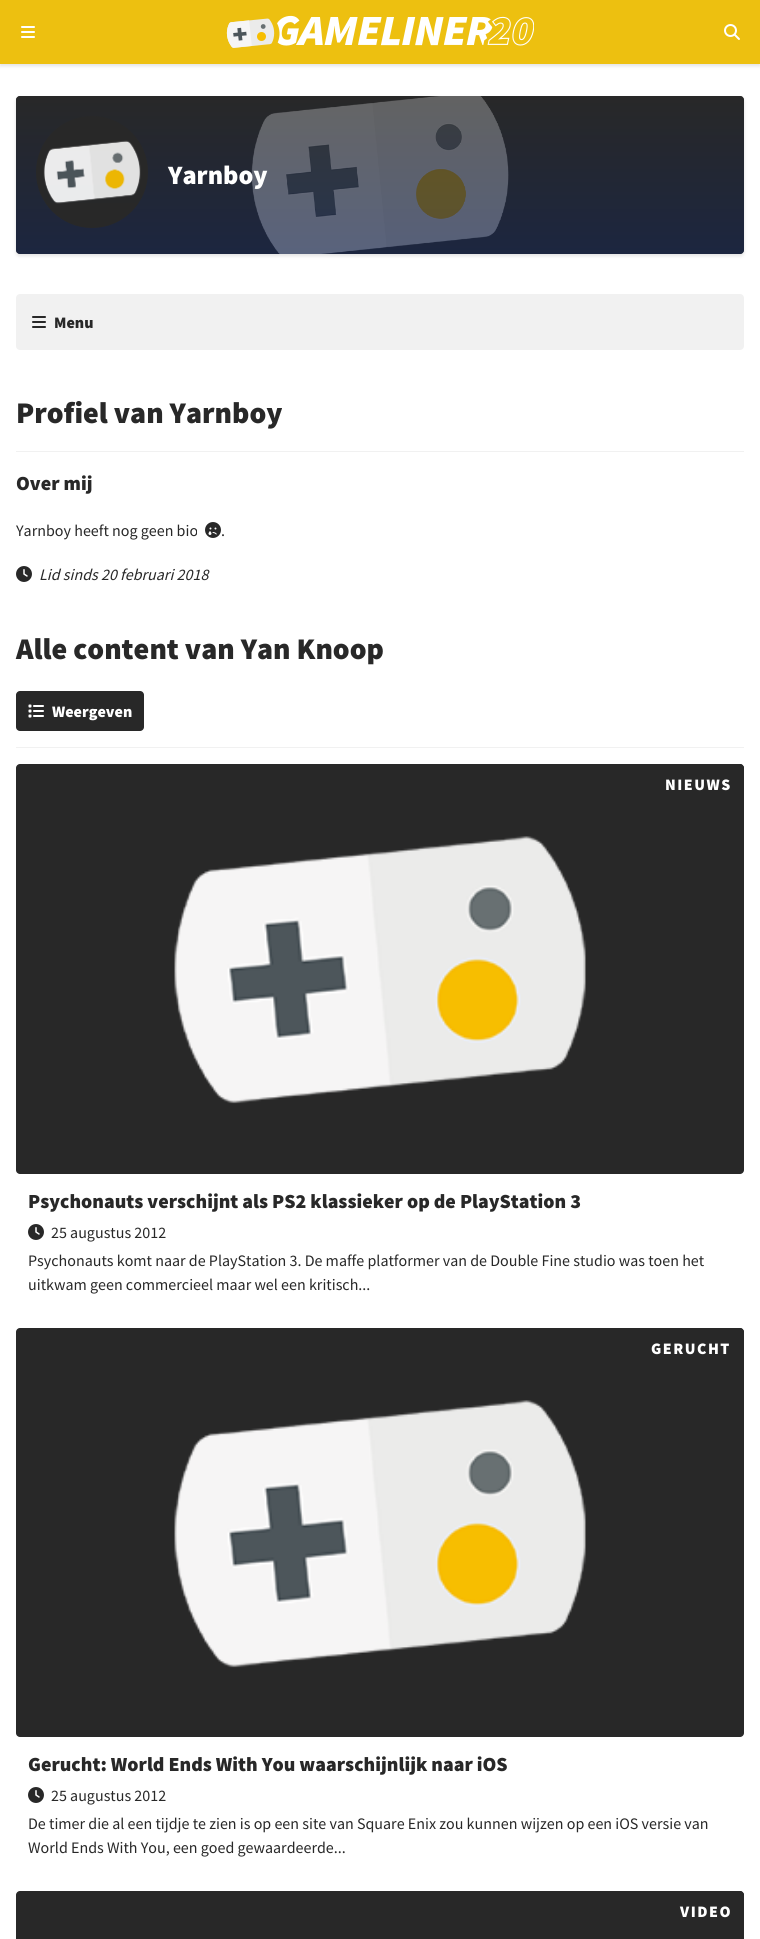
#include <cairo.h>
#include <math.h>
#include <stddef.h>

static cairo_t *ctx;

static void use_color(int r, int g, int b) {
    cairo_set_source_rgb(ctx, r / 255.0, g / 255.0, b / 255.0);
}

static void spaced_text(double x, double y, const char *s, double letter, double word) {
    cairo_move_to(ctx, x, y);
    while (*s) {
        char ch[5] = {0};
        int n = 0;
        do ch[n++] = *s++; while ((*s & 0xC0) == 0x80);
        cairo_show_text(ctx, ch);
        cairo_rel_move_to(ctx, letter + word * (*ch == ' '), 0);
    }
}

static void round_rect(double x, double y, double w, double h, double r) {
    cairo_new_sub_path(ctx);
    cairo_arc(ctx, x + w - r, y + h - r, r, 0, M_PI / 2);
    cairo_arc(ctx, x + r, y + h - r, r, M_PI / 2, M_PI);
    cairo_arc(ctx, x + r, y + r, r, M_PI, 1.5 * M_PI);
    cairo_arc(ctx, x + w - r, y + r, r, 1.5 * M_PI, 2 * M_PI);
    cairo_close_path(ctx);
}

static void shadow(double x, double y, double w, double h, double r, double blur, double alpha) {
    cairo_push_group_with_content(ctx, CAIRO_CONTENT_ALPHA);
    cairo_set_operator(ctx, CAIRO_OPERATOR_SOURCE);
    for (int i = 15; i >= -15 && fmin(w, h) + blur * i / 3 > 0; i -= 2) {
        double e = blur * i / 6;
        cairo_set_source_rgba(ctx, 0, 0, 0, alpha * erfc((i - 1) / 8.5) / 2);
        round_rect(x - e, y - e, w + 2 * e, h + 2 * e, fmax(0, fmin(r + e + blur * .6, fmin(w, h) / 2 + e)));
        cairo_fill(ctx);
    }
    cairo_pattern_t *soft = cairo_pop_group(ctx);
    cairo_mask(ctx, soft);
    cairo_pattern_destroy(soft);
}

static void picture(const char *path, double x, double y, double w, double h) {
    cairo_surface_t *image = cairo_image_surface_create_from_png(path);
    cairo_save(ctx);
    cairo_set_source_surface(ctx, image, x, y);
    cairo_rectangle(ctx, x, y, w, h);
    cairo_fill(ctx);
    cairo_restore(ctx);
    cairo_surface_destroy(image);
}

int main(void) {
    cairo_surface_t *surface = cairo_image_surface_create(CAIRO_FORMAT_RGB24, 760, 1939);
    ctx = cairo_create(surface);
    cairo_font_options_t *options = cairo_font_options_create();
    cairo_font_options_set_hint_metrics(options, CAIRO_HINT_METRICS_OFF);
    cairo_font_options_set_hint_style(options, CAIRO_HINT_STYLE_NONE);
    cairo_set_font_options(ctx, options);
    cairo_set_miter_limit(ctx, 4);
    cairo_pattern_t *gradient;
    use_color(255, 255, 255);
    cairo_paint(ctx);
    use_color(0, 0, 0);
    shadow(0, 2, 760, 64, 0, 2, 0.12);
    use_color(237, 192, 16);
    cairo_rectangle(ctx, 0, 0, 760, 64);
    cairo_fill(ctx);
    picture("img1.png", 21, 26, 14, 12);
    picture("img2.png", 226, 15, 308, 33);
    picture("img3.png", 724, 24, 16, 16);
    use_color(0, 0, 0);
    shadow(16, 98, 728, 158, 4, 2, 0.12);
    use_color(40, 40, 40);
    round_rect(16, 96, 728, 158, 4);
    cairo_fill(ctx);
    picture("img4.png", 251, 96, 258, 158);
    gradient = cairo_pattern_create_linear(380, 254, 380, 96);
    cairo_pattern_add_color_stop_rgba(gradient, 0, 0.09, 0.145, 0.29, 0.7);
    cairo_pattern_add_color_stop_rgba(gradient, 1, 0.157, 0.157, 0.157, 0.7);
    cairo_set_source(ctx, gradient);
    cairo_pattern_destroy(gradient);
    round_rect(16, 96, 728, 158, 4);
    cairo_fill(ctx);
    use_color(40, 40, 40);
    cairo_arc(ctx, 92, 172, 56, 0, 2 * M_PI);
    cairo_fill(ctx);
    picture("img5.png", 43, 140, 98, 64);
    gradient = cairo_pattern_create_linear(92, 234, 92, 116);
    cairo_pattern_add_color_stop_rgba(gradient, 0, 0.09, 0.145, 0.29, 0.05);
    cairo_pattern_add_color_stop_rgba(gradient, 1, 0.157, 0.157, 0.157, 0.05);
    cairo_set_source(ctx, gradient);
    cairo_pattern_destroy(gradient);
    cairo_rectangle(ctx, 44, 141, 96, 62);
    cairo_fill(ctx);
    cairo_select_font_face(ctx, "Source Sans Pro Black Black", CAIRO_FONT_SLANT_NORMAL, CAIRO_FONT_WEIGHT_NORMAL);
    cairo_set_font_size(ctx, 26.5);
    use_color(255, 255, 255);
    cairo_move_to(ctx, 168, 184);
    cairo_show_text(ctx, "Yarnboy");
    use_color(241, 241, 241);
    round_rect(16, 294, 728, 56, 4);
    cairo_fill(ctx);
    picture("img6.png", 32, 316, 14, 12);
    cairo_set_font_size(ctx, 16);
    use_color(40, 40, 40);
    cairo_move_to(ctx, 54, 328);
    cairo_show_text(ctx, "Menu");
    use_color(241, 241, 241);
    cairo_rectangle(ctx, 16, 451, 728, 1);
    cairo_fill(ctx);
    cairo_set_font_size(ctx, 30);
    use_color(40, 40, 40);
    cairo_move_to(ctx, 16, 423);
    cairo_show_text(ctx, "Profiel van Yarnboy");
    cairo_set_font_size(ctx, 20);
    cairo_move_to(ctx, 16, 490);
    cairo_show_text(ctx, "Over mij");
    cairo_select_font_face(ctx, "Source Sans Pro", CAIRO_FONT_SLANT_NORMAL, CAIRO_FONT_WEIGHT_NORMAL);
    cairo_set_font_size(ctx, 16);
    cairo_move_to(ctx, 16, 536);
    cairo_show_text(ctx, "Yarnboy heeft nog geen bio");
    picture("img7.png", 205, 522, 16, 16);
    cairo_move_to(ctx, 221, 536);
    cairo_show_text(ctx, ".");
    picture("img8.png", 16, 566, 16, 16);
    cairo_select_font_face(ctx, "Source Sans Pro", CAIRO_FONT_SLANT_ITALIC, CAIRO_FONT_WEIGHT_NORMAL);
    cairo_move_to(ctx, 39, 580);
    cairo_show_text(ctx, "Lid sinds 20 februari 2018");
    use_color(241, 241, 241);
    cairo_rectangle(ctx, 16, 747, 728, 1);
    cairo_fill(ctx);
    cairo_select_font_face(ctx, "Source Sans Pro Black Black", CAIRO_FONT_SLANT_NORMAL, CAIRO_FONT_WEIGHT_NORMAL);
    cairo_set_font_size(ctx, 30);
    use_color(40, 40, 40);
    cairo_move_to(ctx, 16, 659);
    cairo_show_text(ctx, "Alle content van Yan Knoop");
    round_rect(16, 691, 128, 40, 4);
    cairo_fill(ctx);
    picture("img9.png", 28, 704, 16, 14);
    cairo_set_font_size(ctx, 16);
    use_color(255, 255, 255);
    cairo_move_to(ctx, 52, 717);
    cairo_show_text(ctx, "Weergeven");
    cairo_save(ctx);
    round_rect(16, 764, 728, 410, 4);
    cairo_clip(ctx);
    use_color(40, 40, 40);
    round_rect(16, 764, 728, 411, 4);
    cairo_fill(ctx);
    cairo_restore(ctx);
    use_color(40, 40, 40);
    cairo_new_path(ctx);
    cairo_move_to(ctx, 647, 764);
    cairo_line_to(ctx, 658, 804);
    cairo_line_to(ctx, 744, 804);
    cairo_line_to(ctx, 744, 768);
    cairo_curve_to(ctx, 744, 766, 742, 764, 740, 764);
    cairo_close_path(ctx);
    cairo_fill(ctx);
    use_color(255, 255, 255);
    spaced_text(665, 790, "NIEUWS", 1.5, 0);
    picture("img10.png", 174, 836, 412, 268);
    cairo_set_font_size(ctx, 20);
    use_color(40, 40, 40);
    cairo_move_to(ctx, 28, 1208);
    cairo_show_text(ctx, "Psychonauts verschijnt als PS2 klassieker op de PlayStation 3");
    picture("img8.png", 28, 1224, 16, 16);
    cairo_select_font_face(ctx, "Source Sans Pro", CAIRO_FONT_SLANT_NORMAL, CAIRO_FONT_WEIGHT_NORMAL);
    cairo_set_font_size(ctx, 16);
    cairo_move_to(ctx, 51, 1238);
    cairo_show_text(ctx, "25 augustus 2012");
    cairo_move_to(ctx, 28, 1266);
    cairo_show_text(ctx, "Psychonauts komt naar de PlayStation 3. De maffe platformer van de Double Fine studio was toen het");
    cairo_move_to(ctx, 28, 1290);
    cairo_show_text(ctx, "uitkwam geen commercieel maar wel een kritisch...");
    cairo_save(ctx);
    round_rect(16, 1328, 728, 409, 4);
    cairo_clip(ctx);
    round_rect(16, 1328, 728, 410, 4);
    cairo_fill(ctx);
    cairo_restore(ctx);
    cairo_new_path(ctx);
    cairo_move_to(ctx, 634, 1328);
    cairo_line_to(ctx, 645, 1368);
    cairo_line_to(ctx, 744, 1368);
    cairo_line_to(ctx, 744, 1332);
    cairo_curve_to(ctx, 744, 1330, 742, 1328, 740, 1328);
    cairo_close_path(ctx);
    cairo_fill(ctx);
    cairo_select_font_face(ctx, "Source Sans Pro Black Black", CAIRO_FONT_SLANT_NORMAL, CAIRO_FONT_WEIGHT_NORMAL);
    use_color(255, 255, 255);
    spaced_text(651, 1354, "GERUCHT", 1.5, 0);
    picture("img10.png", 174, 1400, 412, 268);
    cairo_set_font_size(ctx, 20);
    use_color(40, 40, 40);
    cairo_move_to(ctx, 28, 1771);
    cairo_show_text(ctx, "Gerucht: World Ends With You waarschijnlijk naar iOS");
    picture("img8.png", 28, 1787, 16, 16);
    cairo_select_font_face(ctx, "Source Sans Pro", CAIRO_FONT_SLANT_NORMAL, CAIRO_FONT_WEIGHT_NORMAL);
    cairo_set_font_size(ctx, 16);
    cairo_move_to(ctx, 51, 1801);
    cairo_show_text(ctx, "25 augustus 2012");
    cairo_move_to(ctx, 28, 1829);
    cairo_show_text(ctx, "De timer die al een tijdje te zien is op een site van Square Enix zou kunnen wijzen op een iOS versie van");
    cairo_move_to(ctx, 28, 1853);
    cairo_show_text(ctx, "World Ends With You, een goed gewaardeerde...");
    cairo_save(ctx);
    round_rect(16, 1891, 728, 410, 4);
    cairo_clip(ctx);
    round_rect(16, 1891, 728, 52, 4);
    cairo_fill(ctx);
    cairo_restore(ctx);
    cairo_new_path(ctx);
    cairo_move_to(ctx, 662, 1891);
    cairo_line_to(ctx, 673, 1931);
    cairo_line_to(ctx, 744, 1931);
    cairo_line_to(ctx, 744, 1895);
    cairo_curve_to(ctx, 744, 1893, 742, 1891, 740, 1891);
    cairo_close_path(ctx);
    cairo_fill(ctx);
    cairo_select_font_face(ctx, "Source Sans Pro Black Black", CAIRO_FONT_SLANT_NORMAL, CAIRO_FONT_WEIGHT_NORMAL);
    use_color(255, 255, 255);
    spaced_text(680, 1917, "VIDEO", 1.5, 0);
    cairo_surface_write_to_png(surface, "result.png");
    cairo_font_options_destroy(options);
    cairo_destroy(ctx);
    cairo_surface_destroy(surface);
    return 0;
}
